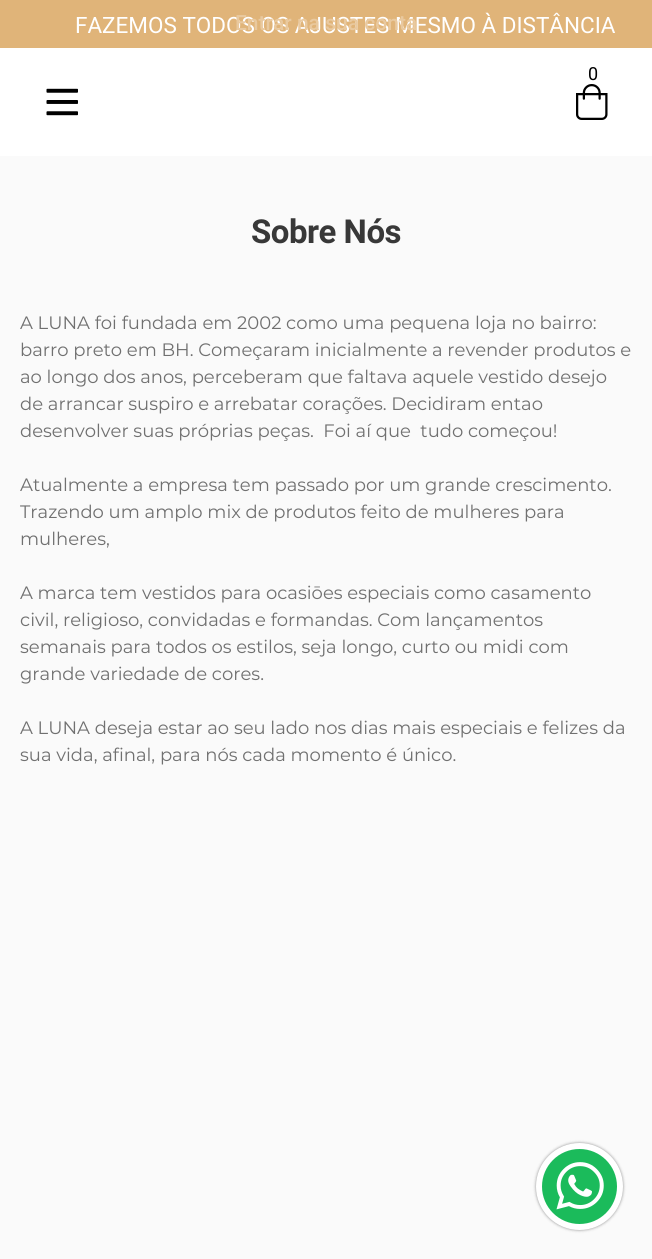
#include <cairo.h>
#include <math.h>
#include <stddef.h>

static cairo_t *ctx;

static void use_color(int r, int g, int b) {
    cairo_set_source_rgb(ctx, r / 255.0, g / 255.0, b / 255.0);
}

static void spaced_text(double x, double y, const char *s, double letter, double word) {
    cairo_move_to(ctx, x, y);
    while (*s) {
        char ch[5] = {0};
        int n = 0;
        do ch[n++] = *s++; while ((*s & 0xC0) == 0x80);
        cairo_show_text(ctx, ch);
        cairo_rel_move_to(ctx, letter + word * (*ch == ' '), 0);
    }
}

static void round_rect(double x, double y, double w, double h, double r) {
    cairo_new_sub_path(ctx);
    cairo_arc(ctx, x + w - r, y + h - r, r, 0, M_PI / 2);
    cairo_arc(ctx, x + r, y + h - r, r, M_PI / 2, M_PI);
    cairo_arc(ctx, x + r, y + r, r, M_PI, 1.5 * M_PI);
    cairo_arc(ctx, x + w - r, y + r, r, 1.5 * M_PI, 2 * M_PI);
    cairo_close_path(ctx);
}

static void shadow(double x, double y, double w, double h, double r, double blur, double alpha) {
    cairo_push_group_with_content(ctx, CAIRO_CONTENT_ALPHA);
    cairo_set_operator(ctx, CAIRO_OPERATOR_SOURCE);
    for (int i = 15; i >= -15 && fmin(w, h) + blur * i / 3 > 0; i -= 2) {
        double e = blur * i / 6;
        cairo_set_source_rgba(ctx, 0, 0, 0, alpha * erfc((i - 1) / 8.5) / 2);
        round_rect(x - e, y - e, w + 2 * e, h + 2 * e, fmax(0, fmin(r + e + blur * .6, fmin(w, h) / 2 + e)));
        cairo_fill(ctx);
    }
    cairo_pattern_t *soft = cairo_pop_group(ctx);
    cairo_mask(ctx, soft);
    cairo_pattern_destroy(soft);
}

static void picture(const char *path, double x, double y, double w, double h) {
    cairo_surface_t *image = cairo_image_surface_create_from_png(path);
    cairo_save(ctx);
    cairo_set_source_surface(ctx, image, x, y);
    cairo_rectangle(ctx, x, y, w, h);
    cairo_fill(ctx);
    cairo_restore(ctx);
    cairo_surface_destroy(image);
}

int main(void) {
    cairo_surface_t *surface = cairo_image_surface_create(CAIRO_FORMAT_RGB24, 652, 1259);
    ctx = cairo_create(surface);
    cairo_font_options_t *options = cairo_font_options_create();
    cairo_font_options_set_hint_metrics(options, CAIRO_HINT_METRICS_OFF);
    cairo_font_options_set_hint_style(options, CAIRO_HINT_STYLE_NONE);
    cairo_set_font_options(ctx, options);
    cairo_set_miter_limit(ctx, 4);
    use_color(250, 250, 250);
    cairo_paint(ctx);
    use_color(224, 180, 121);
    cairo_rectangle(ctx, 0, 0, 652, 48);
    cairo_fill(ctx);
    cairo_select_font_face(ctx, "Roboto", CAIRO_FONT_SLANT_NORMAL, CAIRO_FONT_WEIGHT_NORMAL);
    cairo_set_font_size(ctx, 22.5);
    use_color(255, 255, 255);
    cairo_move_to(ctx, 75, 33);
    cairo_show_text(ctx, "FAZEMOS TODOS OS AJUSTES MESMO À DISTÂNCIA");
    cairo_rectangle(ctx, 0, 48, 652, 108);
    cairo_fill(ctx);
    cairo_set_font_size(ctx, 18);
    use_color(0, 0, 0);
    cairo_move_to(ctx, 588, 80);
    cairo_show_text(ctx, "0");
    picture("img1.png", 576, 84, 32, 36);
    picture("img2.png", 46, 88, 32, 28);
    cairo_select_font_face(ctx, "Roboto Medium", CAIRO_FONT_SLANT_NORMAL, CAIRO_FONT_WEIGHT_NORMAL);
    cairo_set_font_size(ctx, 21);
    use_color(233, 201, 159);
    cairo_move_to(ctx, 235, 30);
    cairo_show_text(ctx, "Entrar na sua conta");
    cairo_select_font_face(ctx, "Roboto", CAIRO_FONT_SLANT_NORMAL, CAIRO_FONT_WEIGHT_BOLD);
    cairo_set_font_size(ctx, 33);
    use_color(56, 56, 56);
    spaced_text(251, 243, "Sobre Nós", -0.5, 0);
    cairo_select_font_face(ctx, "Montserrat", CAIRO_FONT_SLANT_NORMAL, CAIRO_FONT_WEIGHT_NORMAL);
    cairo_set_font_size(ctx, 18);
    use_color(112, 112, 112);
    cairo_move_to(ctx, 20, 329);
    cairo_show_text(ctx, "A LUNA foi fundada em 2002 como uma pequena loja no bairro:");
    cairo_move_to(ctx, 20, 356);
    cairo_show_text(ctx, "barro preto em BH. Começaram inicialmente a revender produtos e");
    cairo_move_to(ctx, 20, 383);
    cairo_show_text(ctx, "ao longo dos anos, perceberam que faltava aquele vestido desejo");
    cairo_move_to(ctx, 20, 410);
    cairo_show_text(ctx, "de arrancar suspiro e arrebatar corações. Decidiram entao");
    cairo_move_to(ctx, 20, 437);
    cairo_show_text(ctx, "desenvolver suas próprias peças.  Foi aí que  tudo começou!");
    cairo_move_to(ctx, 20, 491);
    cairo_show_text(ctx, "Atualmente a empresa tem passado por um grande crescimento.");
    cairo_move_to(ctx, 20, 518);
    cairo_show_text(ctx, "Trazendo um amplo mix de produtos feito de mulheres para");
    cairo_move_to(ctx, 20, 545);
    cairo_show_text(ctx, "mulheres,");
    cairo_move_to(ctx, 20, 599);
    cairo_show_text(ctx, "A marca tem vestidos para ocasiōes especiais como casamento");
    cairo_move_to(ctx, 20, 626);
    cairo_show_text(ctx, "civil, religioso, convidadas e formandas. Com lançamentos");
    cairo_move_to(ctx, 20, 653);
    cairo_show_text(ctx, "semanais para todos os estilos, seja longo, curto ou midi com");
    cairo_move_to(ctx, 20, 680);
    cairo_show_text(ctx, "grande variedade de cores.");
    cairo_move_to(ctx, 20, 734);
    cairo_show_text(ctx, "A LUNA deseja estar ao seu lado nos dias mais especiais e felizes da");
    cairo_move_to(ctx, 20, 761);
    cairo_show_text(ctx, "sua vida, afinal, para nós cada momento é único.");
    use_color(0, 0, 0);
    shadow(536, 1143, 87, 87, 43.5, 1.5, 0.44);
    use_color(27, 187, 91);
    cairo_arc(ctx, 579.5, 1186.5, 40.5, 0, 2 * M_PI);
    cairo_fill_preserve(ctx);
    use_color(255, 255, 255);
    cairo_set_line_width(ctx, 6);
    cairo_stroke(ctx);
    picture("img3.png", 556, 1162, 48, 48);
    cairo_surface_write_to_png(surface, "result.png");
    cairo_font_options_destroy(options);
    cairo_destroy(ctx);
    cairo_surface_destroy(surface);
    return 0;
}
